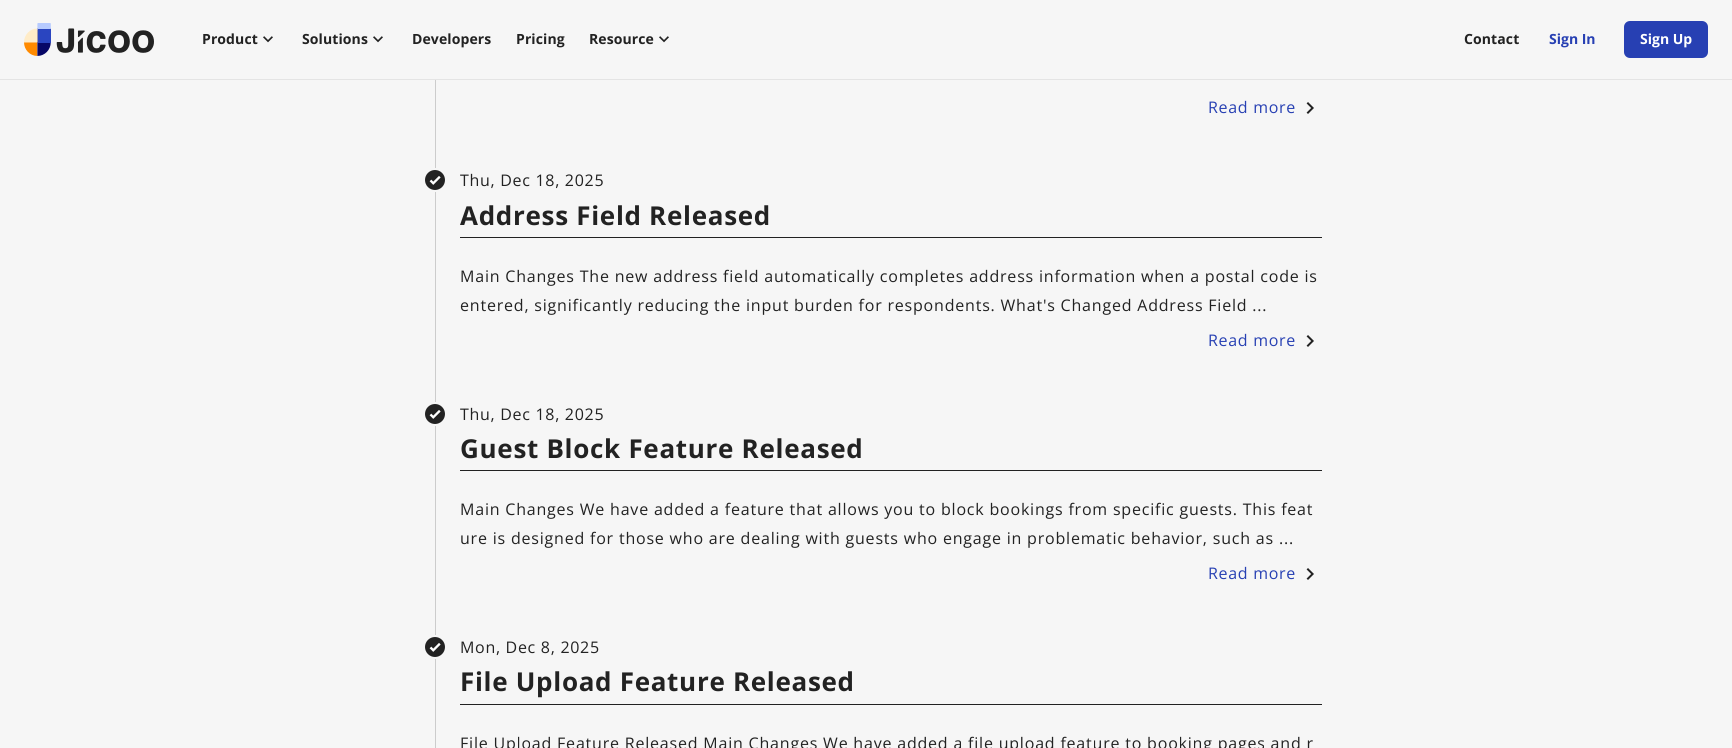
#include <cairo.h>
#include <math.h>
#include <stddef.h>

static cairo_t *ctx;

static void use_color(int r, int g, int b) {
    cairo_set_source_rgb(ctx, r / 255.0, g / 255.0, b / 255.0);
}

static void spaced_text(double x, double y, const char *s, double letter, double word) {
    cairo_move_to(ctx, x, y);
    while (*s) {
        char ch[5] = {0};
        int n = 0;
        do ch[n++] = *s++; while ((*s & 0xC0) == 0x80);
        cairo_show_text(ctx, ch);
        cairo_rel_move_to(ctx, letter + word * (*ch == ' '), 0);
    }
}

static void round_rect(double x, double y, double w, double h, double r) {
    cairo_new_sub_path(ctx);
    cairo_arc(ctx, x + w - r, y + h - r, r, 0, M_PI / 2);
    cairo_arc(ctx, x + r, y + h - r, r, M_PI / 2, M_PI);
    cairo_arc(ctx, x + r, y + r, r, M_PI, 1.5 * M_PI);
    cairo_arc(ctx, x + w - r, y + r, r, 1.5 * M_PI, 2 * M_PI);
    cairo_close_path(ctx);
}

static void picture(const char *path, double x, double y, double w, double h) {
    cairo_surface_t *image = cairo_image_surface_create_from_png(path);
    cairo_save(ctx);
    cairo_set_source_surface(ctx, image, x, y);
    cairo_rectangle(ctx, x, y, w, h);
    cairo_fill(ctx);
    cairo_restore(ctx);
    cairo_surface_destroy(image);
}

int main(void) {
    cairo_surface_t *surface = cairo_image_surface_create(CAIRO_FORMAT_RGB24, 1732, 748);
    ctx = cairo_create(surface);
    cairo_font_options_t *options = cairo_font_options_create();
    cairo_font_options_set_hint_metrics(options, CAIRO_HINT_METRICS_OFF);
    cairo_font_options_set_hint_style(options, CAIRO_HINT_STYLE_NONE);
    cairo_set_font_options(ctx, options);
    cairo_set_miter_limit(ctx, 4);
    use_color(246, 246, 246);
    cairo_paint(ctx);
    use_color(228, 228, 228);
    cairo_rectangle(ctx, 0, 79, 1732, 1);
    cairo_fill(ctx);
    picture("img1.png", 24, 23, 130, 33);
    cairo_select_font_face(ctx, "Open Sans", CAIRO_FONT_SLANT_NORMAL, CAIRO_FONT_WEIGHT_BOLD);
    cairo_set_font_size(ctx, 14);
    use_color(34, 34, 34);
    spaced_text(202, 44, "Product", 0.1, 0);
    picture("img2.png", 263, 36, 10, 7);
    spaced_text(302, 44, "Solutions", 0.1, 0);
    picture("img2.png", 373, 36, 10, 7);
    spaced_text(412, 44, "Developers", 0.1, 0);
    spaced_text(516, 44, "Pricing", 0.1, 0);
    spaced_text(589, 44, "Resource", 0.1, 0);
    picture("img2.png", 659, 36, 10, 7);
    spaced_text(1464, 44, "Contact", 0.1, 0);
    use_color(39, 64, 179);
    cairo_move_to(ctx, 1549, 44);
    cairo_show_text(ctx, "Sign In");
    round_rect(1624, 21, 84, 37, 6);
    cairo_fill(ctx);
    use_color(255, 255, 255);
    cairo_move_to(ctx, 1640, 44);
    cairo_show_text(ctx, "Sign Up");
    use_color(204, 204, 204);
    cairo_rectangle(ctx, 435, 80, 1, 88);
    cairo_fill(ctx);
    cairo_select_font_face(ctx, "Open Sans", CAIRO_FONT_SLANT_NORMAL, CAIRO_FONT_WEIGHT_NORMAL);
    cairo_set_font_size(ctx, 16);
    use_color(39, 64, 179);
    spaced_text(1208, 113, "Read more", 0.7, 0);
    picture("img3.png", 1306, 102, 8, 12);
    use_color(34, 34, 34);
    cairo_arc(ctx, 435, 180, 10, 0, 2 * M_PI);
    cairo_fill(ctx);
    picture("img4.png", 429, 176, 12, 9);
    use_color(204, 204, 204);
    cairo_rectangle(ctx, 435, 192, 1, 210);
    cairo_fill(ctx);
    use_color(34, 34, 34);
    spaced_text(460, 186, "Thu, Dec 18, 2025", 0.7, 0);
    cairo_rectangle(ctx, 460, 237, 862, 1);
    cairo_fill(ctx);
    cairo_select_font_face(ctx, "Open Sans", CAIRO_FONT_SLANT_NORMAL, CAIRO_FONT_WEIGHT_BOLD);
    cairo_set_font_size(ctx, 26);
    spaced_text(460, 225, "Address Field Released", 0.7, 0);
    cairo_select_font_face(ctx, "Open Sans", CAIRO_FONT_SLANT_NORMAL, CAIRO_FONT_WEIGHT_NORMAL);
    cairo_set_font_size(ctx, 16);
    spaced_text(460, 282, "Main Changes The new address field automatically completes address information when a postal code is", 0.8, 0);
    spaced_text(460, 311, "entered, significantly reducing the input burden for respondents. What's Changed Address Field ...", 0.8, 0);
    use_color(39, 64, 179);
    spaced_text(1208, 346, "Read more", 0.7, 0);
    picture("img3.png", 1306, 335, 8, 12);
    use_color(34, 34, 34);
    cairo_arc(ctx, 435, 414, 10, 0, 2 * M_PI);
    cairo_fill(ctx);
    picture("img4.png", 429, 410, 12, 9);
    use_color(204, 204, 204);
    cairo_rectangle(ctx, 435, 426, 1, 209);
    cairo_fill(ctx);
    use_color(34, 34, 34);
    spaced_text(460, 420, "Thu, Dec 18, 2025", 0.7, 0);
    cairo_rectangle(ctx, 460, 470, 862, 1);
    cairo_fill(ctx);
    cairo_select_font_face(ctx, "Open Sans", CAIRO_FONT_SLANT_NORMAL, CAIRO_FONT_WEIGHT_BOLD);
    cairo_set_font_size(ctx, 26);
    spaced_text(460, 458, "Guest Block Feature Released", 0.7, 0);
    cairo_select_font_face(ctx, "Open Sans", CAIRO_FONT_SLANT_NORMAL, CAIRO_FONT_WEIGHT_NORMAL);
    cairo_set_font_size(ctx, 16);
    spaced_text(460, 515, "Main Changes We have added a feature that allows you to block bookings from specific guests. This feat", 0.8, 0);
    spaced_text(460, 544, "ure is designed for those who are dealing with guests who engage in problematic behavior, such as ...", 0.8, 0);
    use_color(39, 64, 179);
    spaced_text(1208, 579, "Read more", 0.7, 0);
    picture("img3.png", 1306, 568, 8, 12);
    use_color(34, 34, 34);
    cairo_arc(ctx, 435, 647, 10, 0, 2 * M_PI);
    cairo_fill(ctx);
    picture("img4.png", 429, 643, 12, 9);
    use_color(204, 204, 204);
    cairo_rectangle(ctx, 435, 659, 1, 89);
    cairo_fill(ctx);
    use_color(34, 34, 34);
    spaced_text(460, 653, "Mon, Dec 8, 2025", 0.7, 0);
    cairo_rectangle(ctx, 460, 704, 862, 1);
    cairo_fill(ctx);
    cairo_select_font_face(ctx, "Open Sans", CAIRO_FONT_SLANT_NORMAL, CAIRO_FONT_WEIGHT_BOLD);
    cairo_set_font_size(ctx, 26);
    spaced_text(460, 691, "File Upload Feature Released", 0.7, 0);
    cairo_select_font_face(ctx, "Open Sans", CAIRO_FONT_SLANT_NORMAL, CAIRO_FONT_WEIGHT_NORMAL);
    cairo_set_font_size(ctx, 16);
    spaced_text(460, 749, "File Upload Feature Released Main Changes We have added a file upload feature to booking pages and r", 0.8, 0);
    cairo_surface_write_to_png(surface, "result.png");
    cairo_font_options_destroy(options);
    cairo_destroy(ctx);
    cairo_surface_destroy(surface);
    return 0;
}
